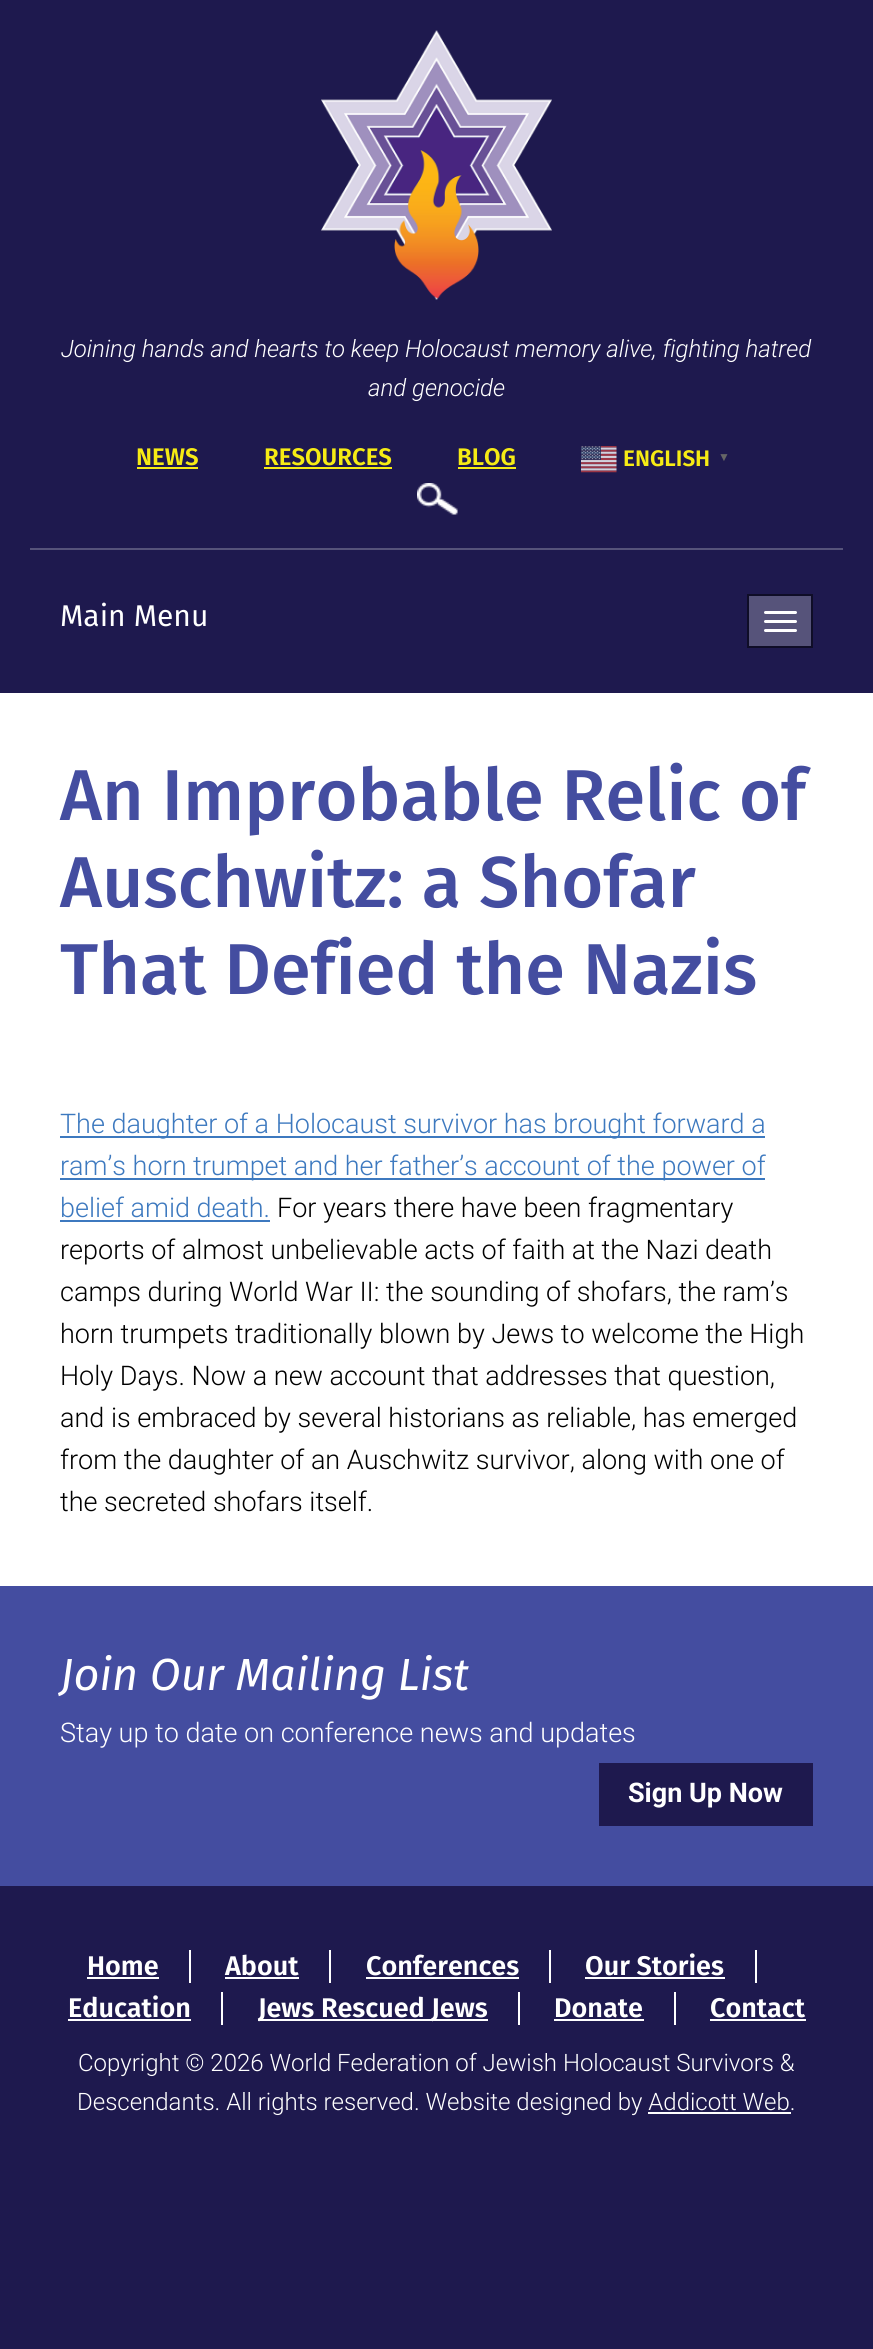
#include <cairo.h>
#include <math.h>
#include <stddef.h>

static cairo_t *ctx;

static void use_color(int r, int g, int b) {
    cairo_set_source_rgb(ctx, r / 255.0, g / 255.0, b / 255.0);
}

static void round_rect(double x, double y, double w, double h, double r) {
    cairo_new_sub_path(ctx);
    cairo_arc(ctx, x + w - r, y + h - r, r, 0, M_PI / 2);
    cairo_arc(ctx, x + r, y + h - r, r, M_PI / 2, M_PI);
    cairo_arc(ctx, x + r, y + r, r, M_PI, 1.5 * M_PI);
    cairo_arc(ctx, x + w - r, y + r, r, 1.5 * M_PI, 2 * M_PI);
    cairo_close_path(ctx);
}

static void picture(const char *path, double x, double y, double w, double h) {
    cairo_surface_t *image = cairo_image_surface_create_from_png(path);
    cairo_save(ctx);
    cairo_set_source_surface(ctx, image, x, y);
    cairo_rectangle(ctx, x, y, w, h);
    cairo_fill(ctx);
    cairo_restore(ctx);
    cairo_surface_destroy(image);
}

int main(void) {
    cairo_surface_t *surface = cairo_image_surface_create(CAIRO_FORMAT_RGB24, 873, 2349);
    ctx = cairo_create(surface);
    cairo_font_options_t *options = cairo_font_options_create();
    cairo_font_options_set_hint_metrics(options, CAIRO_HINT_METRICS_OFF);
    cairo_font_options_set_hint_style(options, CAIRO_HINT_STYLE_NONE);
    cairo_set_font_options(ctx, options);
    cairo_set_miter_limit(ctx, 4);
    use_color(30, 25, 78);
    cairo_paint(ctx);
    picture("img1.png", 321, 30, 231, 270);
    use_color(86, 83, 122);
    cairo_rectangle(ctx, 30, 548, 813, 2);
    cairo_fill(ctx);
    cairo_select_font_face(ctx, "Roboto Light", CAIRO_FONT_SLANT_ITALIC, CAIRO_FONT_WEIGHT_NORMAL);
    cairo_set_font_size(ctx, 24);
    use_color(255, 255, 255);
    cairo_move_to(ctx, 61, 357);
    cairo_show_text(ctx, "Joining hands and hearts to keep Holocaust memory alive, fighting hatred");
    cairo_move_to(ctx, 368, 396);
    cairo_show_text(ctx, "and genocide");
    cairo_select_font_face(ctx, "Fira Sans SemiBold", CAIRO_FONT_SLANT_NORMAL, CAIRO_FONT_WEIGHT_NORMAL);
    use_color(246, 235, 20);
    cairo_move_to(ctx, 136, 465);
    cairo_show_text(ctx, "NEWS");
    cairo_rectangle(ctx, 137, 467, 61, 2);
    cairo_fill(ctx);
    cairo_move_to(ctx, 264, 465);
    cairo_show_text(ctx, "RESOURCES");
    cairo_rectangle(ctx, 264, 467, 128, 2);
    cairo_fill(ctx);
    cairo_move_to(ctx, 457, 465);
    cairo_show_text(ctx, "BLOG");
    cairo_rectangle(ctx, 458, 467, 58, 2);
    cairo_fill(ctx);
    picture("img2.png", 581, 446, 36, 27);
    cairo_set_font_size(ctx, 22.5);
    cairo_move_to(ctx, 623, 466);
    cairo_show_text(ctx, "ENGLISH");
    cairo_select_font_face(ctx, "Liberation Serif", CAIRO_FONT_SLANT_NORMAL, CAIRO_FONT_WEIGHT_BOLD);
    cairo_set_font_size(ctx, 12);
    use_color(102, 102, 102);
    cairo_move_to(ctx, 718, 461);
    cairo_show_text(ctx, "▼");
    picture("img3.png", 417, 483, 41, 32);
    cairo_select_font_face(ctx, "Fira Sans", CAIRO_FONT_SLANT_NORMAL, CAIRO_FONT_WEIGHT_NORMAL);
    cairo_set_font_size(ctx, 30);
    use_color(255, 255, 255);
    cairo_move_to(ctx, 60, 626);
    cairo_show_text(ctx, "Main Menu");
    use_color(86, 83, 122);
    cairo_rectangle(ctx, 748, 595, 64, 52);
    cairo_fill_preserve(ctx);
    use_color(15, 13, 39);
    cairo_stroke(ctx);
    use_color(255, 255, 255);
    round_rect(764, 611, 33, 3, 1.5);
    cairo_fill(ctx);
    round_rect(764, 620, 33, 3, 1.5);
    cairo_fill(ctx);
    round_rect(764, 629, 33, 3, 1.5);
    cairo_fill(ctx);
    cairo_rectangle(ctx, 0, 693, 873, 893);
    cairo_fill(ctx);
    cairo_select_font_face(ctx, "Fira Sans Medium", CAIRO_FONT_SLANT_NORMAL, CAIRO_FONT_WEIGHT_NORMAL);
    cairo_set_font_size(ctx, 72);
    use_color(68, 77, 160);
    cairo_move_to(ctx, 60, 820);
    cairo_show_text(ctx, "An Improbable Relic of");
    cairo_move_to(ctx, 60, 907);
    cairo_show_text(ctx, "Auschwitz: a Shofar");
    cairo_move_to(ctx, 60, 994);
    cairo_show_text(ctx, "That Defied the Nazis");
    use_color(61, 121, 191);
    cairo_rectangle(ctx, 60, 1136, 705, 2);
    cairo_fill(ctx);
    cairo_select_font_face(ctx, "Roboto Light", CAIRO_FONT_SLANT_NORMAL, CAIRO_FONT_WEIGHT_NORMAL);
    cairo_set_font_size(ctx, 27);
    cairo_move_to(ctx, 60, 1133);
    cairo_show_text(ctx, "The daughter of a Holocaust survivor has brought forward a");
    cairo_rectangle(ctx, 60, 1178, 705, 2);
    cairo_fill(ctx);
    cairo_move_to(ctx, 60, 1175);
    cairo_show_text(ctx, "ram’s horn trumpet and her father’s account of the power of");
    cairo_move_to(ctx, 60, 1217);
    cairo_show_text(ctx, "belief amid death.");
    cairo_rectangle(ctx, 60, 1220, 210, 2);
    cairo_fill(ctx);
    use_color(0, 0, 0);
    cairo_move_to(ctx, 277, 1217);
    cairo_show_text(ctx, "For years there have been fragmentary");
    cairo_move_to(ctx, 60, 1259);
    cairo_show_text(ctx, "reports of almost unbelievable acts of faith at the Nazi death");
    cairo_move_to(ctx, 60, 1301);
    cairo_show_text(ctx, "camps during World War II: the sounding of shofars, the ram’s");
    cairo_move_to(ctx, 60, 1343);
    cairo_show_text(ctx, "horn trumpets traditionally blown by Jews to welcome the High");
    cairo_move_to(ctx, 60, 1385);
    cairo_show_text(ctx, "Holy Days. Now a new account that addresses that question,");
    cairo_move_to(ctx, 60, 1427);
    cairo_show_text(ctx, "and is embraced by several historians as reliable, has emerged");
    cairo_move_to(ctx, 60, 1469);
    cairo_show_text(ctx, "from the daughter of an Auschwitz survivor, along with one of");
    cairo_move_to(ctx, 60, 1511);
    cairo_show_text(ctx, "the secreted shofars itself.");
    use_color(68, 77, 160);
    cairo_rectangle(ctx, 0, 1586, 873, 300);
    cairo_fill(ctx);
    cairo_select_font_face(ctx, "Fira Sans", CAIRO_FONT_SLANT_ITALIC, CAIRO_FONT_WEIGHT_NORMAL);
    cairo_set_font_size(ctx, 45);
    use_color(255, 255, 255);
    cairo_move_to(ctx, 60, 1690);
    cairo_show_text(ctx, "Join Our Mailing List");
    cairo_select_font_face(ctx, "Roboto Light", CAIRO_FONT_SLANT_NORMAL, CAIRO_FONT_WEIGHT_NORMAL);
    cairo_set_font_size(ctx, 27);
    cairo_move_to(ctx, 60, 1742);
    cairo_show_text(ctx, "Stay up to date on conference news and updates");
    use_color(30, 25, 78);
    cairo_rectangle(ctx, 599, 1763, 214, 63);
    cairo_fill(ctx);
    cairo_select_font_face(ctx, "Roboto", CAIRO_FONT_SLANT_NORMAL, CAIRO_FONT_WEIGHT_BOLD);
    use_color(255, 255, 255);
    cairo_move_to(ctx, 628, 1802);
    cairo_show_text(ctx, "Sign Up Now");
    cairo_select_font_face(ctx, "Fira Sans SemiBold", CAIRO_FONT_SLANT_NORMAL, CAIRO_FONT_WEIGHT_NORMAL);
    cairo_move_to(ctx, 87, 1975);
    cairo_show_text(ctx, "Home");
    cairo_rectangle(ctx, 189, 1950, 2, 33);
    cairo_fill(ctx);
    cairo_rectangle(ctx, 87, 1977, 72, 2);
    cairo_fill(ctx);
    cairo_move_to(ctx, 225, 1975);
    cairo_show_text(ctx, "About");
    cairo_rectangle(ctx, 329, 1950, 2, 33);
    cairo_fill(ctx);
    cairo_rectangle(ctx, 225, 1977, 74, 2);
    cairo_fill(ctx);
    cairo_move_to(ctx, 366, 1975);
    cairo_show_text(ctx, "Conferences");
    cairo_rectangle(ctx, 549, 1950, 2, 33);
    cairo_fill(ctx);
    cairo_rectangle(ctx, 366, 1977, 153, 2);
    cairo_fill(ctx);
    cairo_move_to(ctx, 585, 1975);
    cairo_show_text(ctx, "Our Stories");
    cairo_rectangle(ctx, 755, 1950, 2, 33);
    cairo_fill(ctx);
    cairo_rectangle(ctx, 585, 1977, 140, 2);
    cairo_fill(ctx);
    cairo_move_to(ctx, 68, 2017);
    cairo_show_text(ctx, "Education");
    cairo_rectangle(ctx, 221, 1992, 2, 33);
    cairo_fill(ctx);
    cairo_rectangle(ctx, 68, 2019, 123, 2);
    cairo_fill(ctx);
    cairo_rectangle(ctx, 258, 2019, 230, 2);
    cairo_fill(ctx);
    cairo_move_to(ctx, 258, 2017);
    cairo_show_text(ctx, "Jews Rescued Jews");
    cairo_rectangle(ctx, 518, 1992, 2, 33);
    cairo_fill(ctx);
    cairo_move_to(ctx, 554, 2017);
    cairo_show_text(ctx, "Donate");
    cairo_rectangle(ctx, 674, 1992, 2, 33);
    cairo_fill(ctx);
    cairo_rectangle(ctx, 554, 2019, 90, 2);
    cairo_fill(ctx);
    cairo_move_to(ctx, 710, 2017);
    cairo_show_text(ctx, "Contact");
    cairo_rectangle(ctx, 710, 2019, 96, 2);
    cairo_fill(ctx);
    cairo_select_font_face(ctx, "Roboto Light", CAIRO_FONT_SLANT_NORMAL, CAIRO_FONT_WEIGHT_NORMAL);
    cairo_set_font_size(ctx, 24);
    cairo_move_to(ctx, 78, 2071);
    cairo_show_text(ctx, "Copyright © 2026 World Federation of Jewish Holocaust Survivors &");
    cairo_move_to(ctx, 77, 2110);
    cairo_show_text(ctx, "Descendants. All rights reserved. Website designed by Addicott Web.");
    cairo_rectangle(ctx, 648, 2112, 143, 2);
    cairo_fill(ctx);
    cairo_surface_write_to_png(surface, "result.png");
    cairo_font_options_destroy(options);
    cairo_destroy(ctx);
    cairo_surface_destroy(surface);
    return 0;
}
